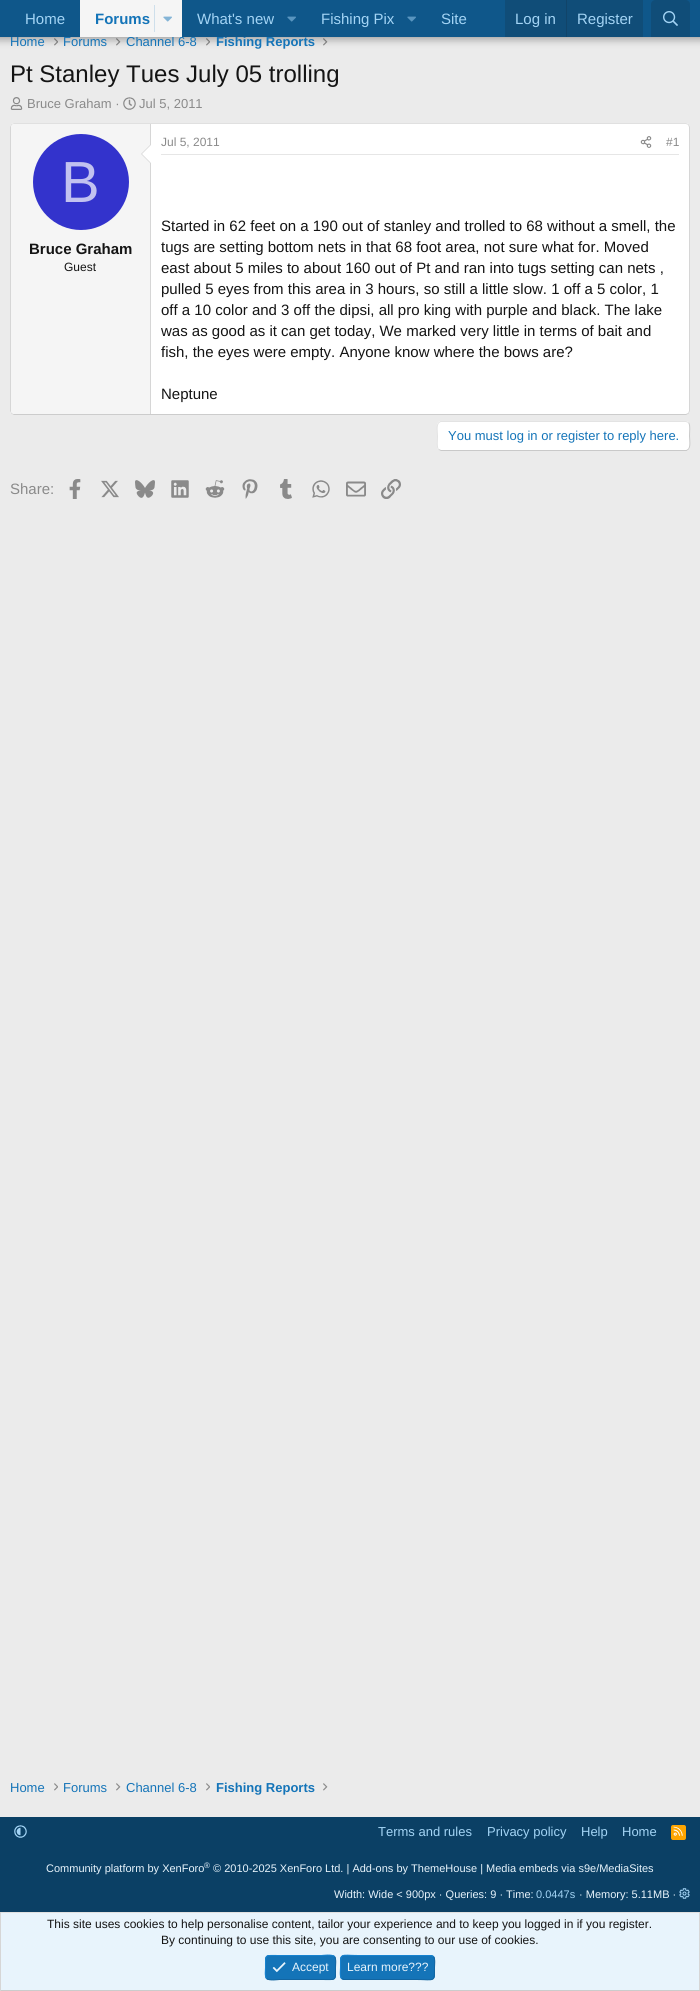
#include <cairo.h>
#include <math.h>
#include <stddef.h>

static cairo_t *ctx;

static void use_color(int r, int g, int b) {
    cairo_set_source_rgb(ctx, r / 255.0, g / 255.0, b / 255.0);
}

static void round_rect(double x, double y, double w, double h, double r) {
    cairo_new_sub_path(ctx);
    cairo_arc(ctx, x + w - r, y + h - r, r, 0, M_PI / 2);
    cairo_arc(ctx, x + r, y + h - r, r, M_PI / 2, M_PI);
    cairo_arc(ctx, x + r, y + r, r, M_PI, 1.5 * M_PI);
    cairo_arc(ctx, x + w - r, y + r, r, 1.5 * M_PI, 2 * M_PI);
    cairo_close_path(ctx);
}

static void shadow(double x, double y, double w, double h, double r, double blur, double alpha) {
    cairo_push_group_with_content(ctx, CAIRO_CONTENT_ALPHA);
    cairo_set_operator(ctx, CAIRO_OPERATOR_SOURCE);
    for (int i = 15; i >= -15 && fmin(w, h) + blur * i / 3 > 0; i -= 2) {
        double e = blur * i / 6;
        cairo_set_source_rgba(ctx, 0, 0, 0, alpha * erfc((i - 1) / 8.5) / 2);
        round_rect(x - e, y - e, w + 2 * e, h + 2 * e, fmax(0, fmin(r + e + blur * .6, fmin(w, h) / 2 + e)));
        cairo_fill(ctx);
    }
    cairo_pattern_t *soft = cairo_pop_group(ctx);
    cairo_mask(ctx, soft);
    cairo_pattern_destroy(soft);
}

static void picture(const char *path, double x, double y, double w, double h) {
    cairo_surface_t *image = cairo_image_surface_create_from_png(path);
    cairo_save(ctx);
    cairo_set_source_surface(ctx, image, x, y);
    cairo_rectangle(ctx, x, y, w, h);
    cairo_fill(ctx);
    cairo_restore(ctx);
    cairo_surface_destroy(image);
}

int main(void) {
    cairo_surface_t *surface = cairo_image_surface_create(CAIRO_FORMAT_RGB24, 700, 1991);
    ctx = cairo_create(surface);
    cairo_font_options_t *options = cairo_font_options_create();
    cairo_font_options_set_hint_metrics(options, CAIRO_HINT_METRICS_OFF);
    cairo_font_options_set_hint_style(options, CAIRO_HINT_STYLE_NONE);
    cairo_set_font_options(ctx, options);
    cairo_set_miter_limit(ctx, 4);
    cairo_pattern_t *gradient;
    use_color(235, 235, 235);
    cairo_paint(ctx);
    picture("img4.png", 54, 38, 4, 8);
    picture("img5.png", 116, 38, 5, 8);
    picture("img4.png", 206, 38, 4, 8);
    picture("img5.png", 323, 38, 5, 8);
    use_color(0, 0, 0);
    shadow(-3, -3, 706, 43, 0, 4, 0.3);
    cairo_select_font_face(ctx, "Liberation Sans", CAIRO_FONT_SLANT_NORMAL, CAIRO_FONT_WEIGHT_NORMAL);
    cairo_set_font_size(ctx, 13);
    use_color(20, 116, 184);
    cairo_move_to(ctx, 126, 46);
    cairo_show_text(ctx, "Channel 6-8");
    cairo_select_font_face(ctx, "Liberation Sans", CAIRO_FONT_SLANT_NORMAL, CAIRO_FONT_WEIGHT_BOLD);
    cairo_move_to(ctx, 216, 46);
    cairo_show_text(ctx, "Fishing Reports");
    use_color(15, 87, 138);
    cairo_rectangle(ctx, 0, 0, 700, 37);
    cairo_fill(ctx);
    cairo_select_font_face(ctx, "Liberation Sans", CAIRO_FONT_SLANT_NORMAL, CAIRO_FONT_WEIGHT_NORMAL);
    cairo_set_font_size(ctx, 15);
    use_color(163, 212, 245);
    cairo_move_to(ctx, 25, 24);
    cairo_show_text(ctx, "Home");
    use_color(245, 245, 245);
    cairo_rectangle(ctx, 80, 0, 102, 37);
    cairo_fill(ctx);
    cairo_select_font_face(ctx, "Liberation Sans", CAIRO_FONT_SLANT_NORMAL, CAIRO_FONT_WEIGHT_BOLD);
    use_color(20, 116, 184);
    cairo_move_to(ctx, 95, 24);
    cairo_show_text(ctx, "Forums");
    use_color(206, 223, 235);
    cairo_rectangle(ctx, 154, 5, 1, 27);
    cairo_fill(ctx);
    picture("img1.png", 163, 16, 9, 6);
    cairo_select_font_face(ctx, "Liberation Sans", CAIRO_FONT_SLANT_NORMAL, CAIRO_FONT_WEIGHT_NORMAL);
    use_color(163, 212, 245);
    cairo_move_to(ctx, 197, 24);
    cairo_show_text(ctx, "What's new");
    picture("img2.png", 287, 16, 9, 6);
    cairo_move_to(ctx, 321, 24);
    cairo_show_text(ctx, "Fishing Pix");
    picture("img2.png", 407, 16, 9, 6);
    cairo_move_to(ctx, 441, 24);
    cairo_show_text(ctx, "Site");
    gradient = cairo_pattern_create_linear(465, 19, 505, 19);
    cairo_pattern_add_color_stop_rgba(gradient, 0, 0.059, 0.341, 0.541, 0);
    cairo_pattern_add_color_stop_rgba(gradient, 0.33, 0.059, 0.341, 0.541, 1);
    cairo_set_source(ctx, gradient);
    cairo_pattern_destroy(gradient);
    cairo_rectangle(ctx, 465, 18, 1, 2);
    cairo_fill(ctx);
    use_color(16, 77, 120);
    cairo_rectangle(ctx, 505, 0, 138, 37);
    cairo_fill(ctx);
    use_color(163, 212, 245);
    cairo_move_to(ctx, 515, 24);
    cairo_show_text(ctx, "Log in");
    use_color(17, 68, 105);
    cairo_rectangle(ctx, 566, 0, 1, 37);
    cairo_fill(ctx);
    use_color(163, 212, 245);
    cairo_move_to(ctx, 577, 24);
    cairo_show_text(ctx, "Register");
    use_color(16, 77, 120);
    cairo_new_path(ctx);
    cairo_move_to(ctx, 655, 0);
    cairo_line_to(ctx, 686, 0);
    cairo_curve_to(ctx, 688, 0, 690, 2, 690, 4);
    cairo_line_to(ctx, 690, 37);
    cairo_line_to(ctx, 651, 37);
    cairo_line_to(ctx, 651, 4);
    cairo_curve_to(ctx, 651, 2, 653, 0, 655, 0);
    cairo_close_path(ctx);
    cairo_fill(ctx);
    picture("img3.png", 663, 11, 15, 15);
    cairo_set_font_size(ctx, 13);
    use_color(20, 116, 184);
    cairo_move_to(ctx, 10, 46);
    cairo_show_text(ctx, "Home");
    cairo_move_to(ctx, 63, 46);
    cairo_show_text(ctx, "Forums");
    cairo_set_font_size(ctx, 24);
    use_color(20, 20, 20);
    cairo_move_to(ctx, 10, 82);
    cairo_show_text(ctx, "Pt Stanley Tues July 05 trolling");
    picture("img6.png", 10, 97, 13, 13);
    cairo_set_font_size(ctx, 13);
    use_color(138, 138, 138);
    cairo_move_to(ctx, 27, 108);
    cairo_show_text(ctx, "Bruce Graham ·");
    picture("img7.png", 123, 97, 13, 13);
    cairo_move_to(ctx, 139, 108);
    cairo_show_text(ctx, "Jul 5, 2011");
    use_color(255, 255, 255);
    round_rect(10, 123, 680, 292, 4);
    cairo_fill(ctx);
    cairo_new_path(ctx);
    cairo_move_to(ctx, 11.5, 124.5);
    cairo_line_to(ctx, 14, 123.5);
    cairo_line_to(ctx, 686, 123.5);
    cairo_line_to(ctx, 688.5, 124.5);
    use_color(224, 224, 224);
    cairo_set_line_width(ctx, 1);
    cairo_stroke(ctx);
    cairo_new_path(ctx);
    cairo_move_to(ctx, 688.5, 124.5);
    cairo_line_to(ctx, 689.5, 127);
    cairo_line_to(ctx, 689.5, 411);
    cairo_line_to(ctx, 688.5, 413.5);
    use_color(214, 214, 214);
    cairo_stroke(ctx);
    cairo_new_path(ctx);
    cairo_move_to(ctx, 688.5, 413.5);
    cairo_line_to(ctx, 686, 414.5);
    cairo_line_to(ctx, 14, 414.5);
    cairo_line_to(ctx, 11.5, 413.5);
    use_color(204, 204, 204);
    cairo_stroke(ctx);
    cairo_new_path(ctx);
    cairo_move_to(ctx, 11.5, 413.5);
    cairo_line_to(ctx, 10.5, 411);
    cairo_line_to(ctx, 10.5, 127);
    cairo_line_to(ctx, 11.5, 124.5);
    use_color(214, 214, 214);
    cairo_stroke(ctx);
    use_color(245, 245, 245);
    cairo_new_path(ctx);
    cairo_move_to(ctx, 14, 124);
    cairo_line_to(ctx, 151, 124);
    cairo_line_to(ctx, 151, 414);
    cairo_line_to(ctx, 14, 414);
    cairo_curve_to(ctx, 12.5, 414, 11, 412.5, 11, 411);
    cairo_line_to(ctx, 11, 127);
    cairo_curve_to(ctx, 11, 125.5, 12.5, 124, 14, 124);
    cairo_close_path(ctx);
    cairo_fill(ctx);
    use_color(214, 214, 214);
    cairo_rectangle(ctx, 150, 124, 1, 290);
    cairo_fill(ctx);
    cairo_new_path(ctx);
    cairo_move_to(ctx, 151, 144);
    cairo_line_to(ctx, 151, 164);
    cairo_line_to(ctx, 141, 154);
    cairo_close_path(ctx);
    cairo_fill(ctx);
    use_color(255, 255, 255);
    cairo_new_path(ctx);
    cairo_move_to(ctx, 151, 145);
    cairo_line_to(ctx, 151, 163);
    cairo_line_to(ctx, 142, 154);
    cairo_close_path(ctx);
    cairo_fill(ctx);
    use_color(51, 51, 204);
    cairo_arc(ctx, 81, 182, 48, 0, 2 * M_PI);
    cairo_fill(ctx);
    cairo_set_font_size(ctx, 58);
    use_color(194, 194, 240);
    cairo_move_to(ctx, 61, 202);
    cairo_show_text(ctx, "B");
    cairo_select_font_face(ctx, "Liberation Sans", CAIRO_FONT_SLANT_NORMAL, CAIRO_FONT_WEIGHT_BOLD);
    cairo_set_font_size(ctx, 15);
    use_color(20, 20, 20);
    cairo_move_to(ctx, 29, 254);
    cairo_show_text(ctx, "Bruce Graham");
    cairo_select_font_face(ctx, "Liberation Sans", CAIRO_FONT_SLANT_NORMAL, CAIRO_FONT_WEIGHT_NORMAL);
    cairo_set_font_size(ctx, 12);
    cairo_move_to(ctx, 64, 271);
    cairo_show_text(ctx, "Guest");
    use_color(230, 230, 230);
    cairo_rectangle(ctx, 161, 154, 518, 1);
    cairo_fill(ctx);
    use_color(138, 138, 138);
    cairo_move_to(ctx, 161, 146);
    cairo_show_text(ctx, "Jul 5, 2011");
    picture("img8.png", 640, 136, 12, 12);
    cairo_move_to(ctx, 666, 146);
    cairo_show_text(ctx, "#1");
    cairo_set_font_size(ctx, 15);
    use_color(20, 20, 20);
    cairo_move_to(ctx, 161, 231);
    cairo_show_text(ctx, "Started in 62 feet on a 190 out of stanley and trolled to 68 without a smell, the");
    cairo_move_to(ctx, 161, 252);
    cairo_show_text(ctx, "tugs are setting bottom nets in that 68 foot area, not sure what for. Moved");
    cairo_move_to(ctx, 161, 273);
    cairo_show_text(ctx, "east about 5 miles to about 160 out of Pt and ran into tugs setting can nets ,");
    cairo_move_to(ctx, 161, 294);
    cairo_show_text(ctx, "pulled 5 eyes from this area in 3 hours, so still a little slow. 1 off a 5 color, 1");
    cairo_move_to(ctx, 161, 315);
    cairo_show_text(ctx, "off a 10 color and 3 off the dipsi, all pro king with purple and black. The lake");
    cairo_move_to(ctx, 161, 336);
    cairo_show_text(ctx, "was as good as it can get today, We marked very little in terms of bait and");
    cairo_move_to(ctx, 161, 357);
    cairo_show_text(ctx, "fish, the eyes were empty. Anyone know where the bows are?");
    cairo_move_to(ctx, 161, 399);
    cairo_show_text(ctx, "Neptune");
    use_color(255, 255, 255);
    round_rect(437, 421, 253, 30, 4);
    cairo_fill(ctx);
    cairo_new_path(ctx);
    cairo_move_to(ctx, 688.5, 422.5);
    cairo_curve_to(ctx, 690.5, 424.5, 689.5, 433, 689.5, 436);
    cairo_curve_to(ctx, 689.5, 439, 691, 447.5, 688, 449.5);
    cairo_line_to(ctx, 686.5, 450.5);
    cairo_line_to(ctx, 441, 450.5);
    cairo_line_to(ctx, 438.5, 449.5);
    use_color(201, 201, 201);
    cairo_stroke(ctx);
    cairo_new_path(ctx);
    cairo_move_to(ctx, 438.5, 449.5);
    cairo_curve_to(ctx, 436.5, 447.5, 437.5, 439, 437.5, 436);
    cairo_curve_to(ctx, 437.5, 433, 436, 424.5, 439, 422.5);
    cairo_line_to(ctx, 440.5, 421.5);
    cairo_line_to(ctx, 686, 421.5);
    cairo_line_to(ctx, 688.5, 422.5);
    use_color(227, 227, 227);
    cairo_stroke(ctx);
    cairo_set_font_size(ctx, 13);
    use_color(20, 116, 184);
    cairo_move_to(ctx, 448, 440);
    cairo_show_text(ctx, "You must log in or register to reply here.");
    cairo_set_font_size(ctx, 15);
    use_color(138, 138, 138);
    cairo_move_to(ctx, 10, 494);
    cairo_show_text(ctx, "Share:");
    picture("img9.png", 69, 479, 12, 20);
    picture("img10.png", 101, 480, 18, 18);
    picture("img11.png", 135, 480, 20, 18);
    picture("img12.png", 171, 480, 18, 18);
    picture("img13.png", 205, 480, 20, 18);
    picture("img14.png", 242, 479, 16, 20);
    picture("img15.png", 280, 479, 12, 20);
    picture("img16.png", 312, 480, 18, 18);
    picture("img17.png", 346, 481, 20, 16);
    picture("img18.png", 381, 479, 20, 20);
    cairo_set_font_size(ctx, 13);
    use_color(20, 116, 184);
    cairo_move_to(ctx, 10, 1792);
    cairo_show_text(ctx, "Home");
    picture("img4.png", 54, 1783, 4, 8);
    cairo_move_to(ctx, 63, 1792);
    cairo_show_text(ctx, "Forums");
    picture("img5.png", 116, 1783, 5, 8);
    cairo_move_to(ctx, 126, 1792);
    cairo_show_text(ctx, "Channel 6-8");
    picture("img4.png", 206, 1783, 4, 8);
    cairo_select_font_face(ctx, "Liberation Sans", CAIRO_FONT_SLANT_NORMAL, CAIRO_FONT_WEIGHT_BOLD);
    cairo_move_to(ctx, 216, 1792);
    cairo_show_text(ctx, "Fishing Reports");
    picture("img5.png", 323, 1783, 5, 8);
    use_color(11, 64, 101);
    cairo_rectangle(ctx, 0, 1817, 700, 95);
    cairo_fill(ctx);
    picture("img19.png", 14, 1825, 13, 13);
    cairo_select_font_face(ctx, "Liberation Sans", CAIRO_FONT_SLANT_NORMAL, CAIRO_FONT_WEIGHT_NORMAL);
    use_color(163, 212, 245);
    cairo_move_to(ctx, 378, 1836);
    cairo_show_text(ctx, "Terms and rules");
    cairo_move_to(ctx, 487, 1836);
    cairo_show_text(ctx, "Privacy policy");
    cairo_move_to(ctx, 581, 1836);
    cairo_show_text(ctx, "Help");
    cairo_move_to(ctx, 622, 1836);
    cairo_show_text(ctx, "Home");
    use_color(255, 165, 0);
    round_rect(671, 1825, 15, 15, 2);
    cairo_fill(ctx);
    picture("img20.png", 673, 1826, 10, 10);
    cairo_set_font_size(ctx, 11);
    use_color(232, 244, 252);
    cairo_move_to(ctx, 46, 1872);
    cairo_show_text(ctx, "Community platform by XenForo");
    cairo_set_font_size(ctx, 8);
    cairo_move_to(ctx, 204, 1868);
    cairo_show_text(ctx, "®");
    cairo_set_font_size(ctx, 11);
    cairo_move_to(ctx, 213, 1872);
    cairo_show_text(ctx, "© 2010-2025 XenForo Ltd. | Add-ons by ThemeHouse | Media embeds via s9e/MediaSites");
    cairo_move_to(ctx, 334, 1898);
    cairo_show_text(ctx, "Width: Wide < 900px · Queries: 9 · Time:");
    use_color(163, 212, 245);
    cairo_move_to(ctx, 536, 1898);
    cairo_show_text(ctx, "0.0447s");
    use_color(232, 244, 252);
    cairo_move_to(ctx, 579, 1898);
    cairo_show_text(ctx, "· Memory: 5.11MB ·");
    picture("img21.png", 679, 1888, 11, 11);
    cairo_rectangle(ctx, 1, 1913, 698, 77);
    cairo_fill(ctx);
    use_color(224, 224, 224);
    cairo_rectangle(ctx, 0, 1912, 700, 1);
    cairo_fill(ctx);
    use_color(214, 214, 214);
    cairo_rectangle(ctx, 699, 1912, 1, 79);
    cairo_fill(ctx);
    use_color(204, 204, 204);
    cairo_rectangle(ctx, 0, 1990, 700, 1);
    cairo_fill(ctx);
    use_color(214, 214, 214);
    cairo_rectangle(ctx, 0, 1912, 1, 79);
    cairo_fill(ctx);
    cairo_set_font_size(ctx, 12);
    use_color(20, 20, 20);
    cairo_move_to(ctx, 47, 1928);
    cairo_show_text(ctx, "This site uses cookies to help personalise content, tailor your experience and to keep you logged in if you register.");
    cairo_move_to(ctx, 161, 1944);
    cairo_show_text(ctx, "By continuing to use this site, you are consenting to our use of cookies.");
    use_color(20, 116, 184);
    round_rect(265, 1955, 71, 25, 4);
    cairo_fill(ctx);
    cairo_new_path(ctx);
    cairo_move_to(ctx, 334.5, 1956.5);
    cairo_curve_to(ctx, 336.5, 1959, 335.5, 1965, 335.5, 1967.5);
    cairo_curve_to(ctx, 335.5, 1981.5, 336.5, 1979.5, 321.5, 1979.5);
    cairo_line_to(ctx, 279.5, 1979.5);
    cairo_curve_to(ctx, 278.5, 1979.5, 269, 1981, 266.5, 1978.5);
    use_color(18, 101, 161);
    cairo_stroke(ctx);
    cairo_new_path(ctx);
    cairo_move_to(ctx, 266.5, 1978.5);
    cairo_curve_to(ctx, 264.5, 1976, 265.5, 1970, 265.5, 1967.5);
    cairo_curve_to(ctx, 265.5, 1953.5, 264.5, 1955.5, 279.5, 1955.5);
    cairo_line_to(ctx, 321.5, 1955.5);
    cairo_curve_to(ctx, 322.5, 1955.5, 332, 1954, 334.5, 1956.5);
    use_color(23, 130, 207);
    cairo_stroke(ctx);
    picture("img22.png", 272, 1962, 14, 11);
    use_color(232, 244, 252);
    cairo_move_to(ctx, 292, 1971);
    cairo_show_text(ctx, "Accept");
    use_color(20, 116, 184);
    round_rect(340, 1955, 95, 25, 4);
    cairo_fill(ctx);
    cairo_new_path(ctx);
    cairo_move_to(ctx, 433.5, 1956.5);
    cairo_curve_to(ctx, 435.5, 1959, 434.5, 1965, 434.5, 1967.5);
    cairo_curve_to(ctx, 434.5, 1983, 434.5, 1979.5, 416.5, 1979.5);
    cairo_line_to(ctx, 344, 1979.5);
    cairo_line_to(ctx, 341.5, 1978.5);
    use_color(18, 101, 161);
    cairo_stroke(ctx);
    cairo_new_path(ctx);
    cairo_move_to(ctx, 341.5, 1978.5);
    cairo_curve_to(ctx, 339.5, 1976, 340.5, 1970, 340.5, 1967.5);
    cairo_curve_to(ctx, 340.5, 1952, 340.5, 1955.5, 358.5, 1955.5);
    cairo_line_to(ctx, 431, 1955.5);
    cairo_line_to(ctx, 433.5, 1956.5);
    use_color(23, 130, 207);
    cairo_stroke(ctx);
    use_color(232, 244, 252);
    cairo_move_to(ctx, 347, 1971);
    cairo_show_text(ctx, "Learn more?\077?");
    cairo_surface_write_to_png(surface, "result.png");
    cairo_font_options_destroy(options);
    cairo_destroy(ctx);
    cairo_surface_destroy(surface);
    return 0;
}
